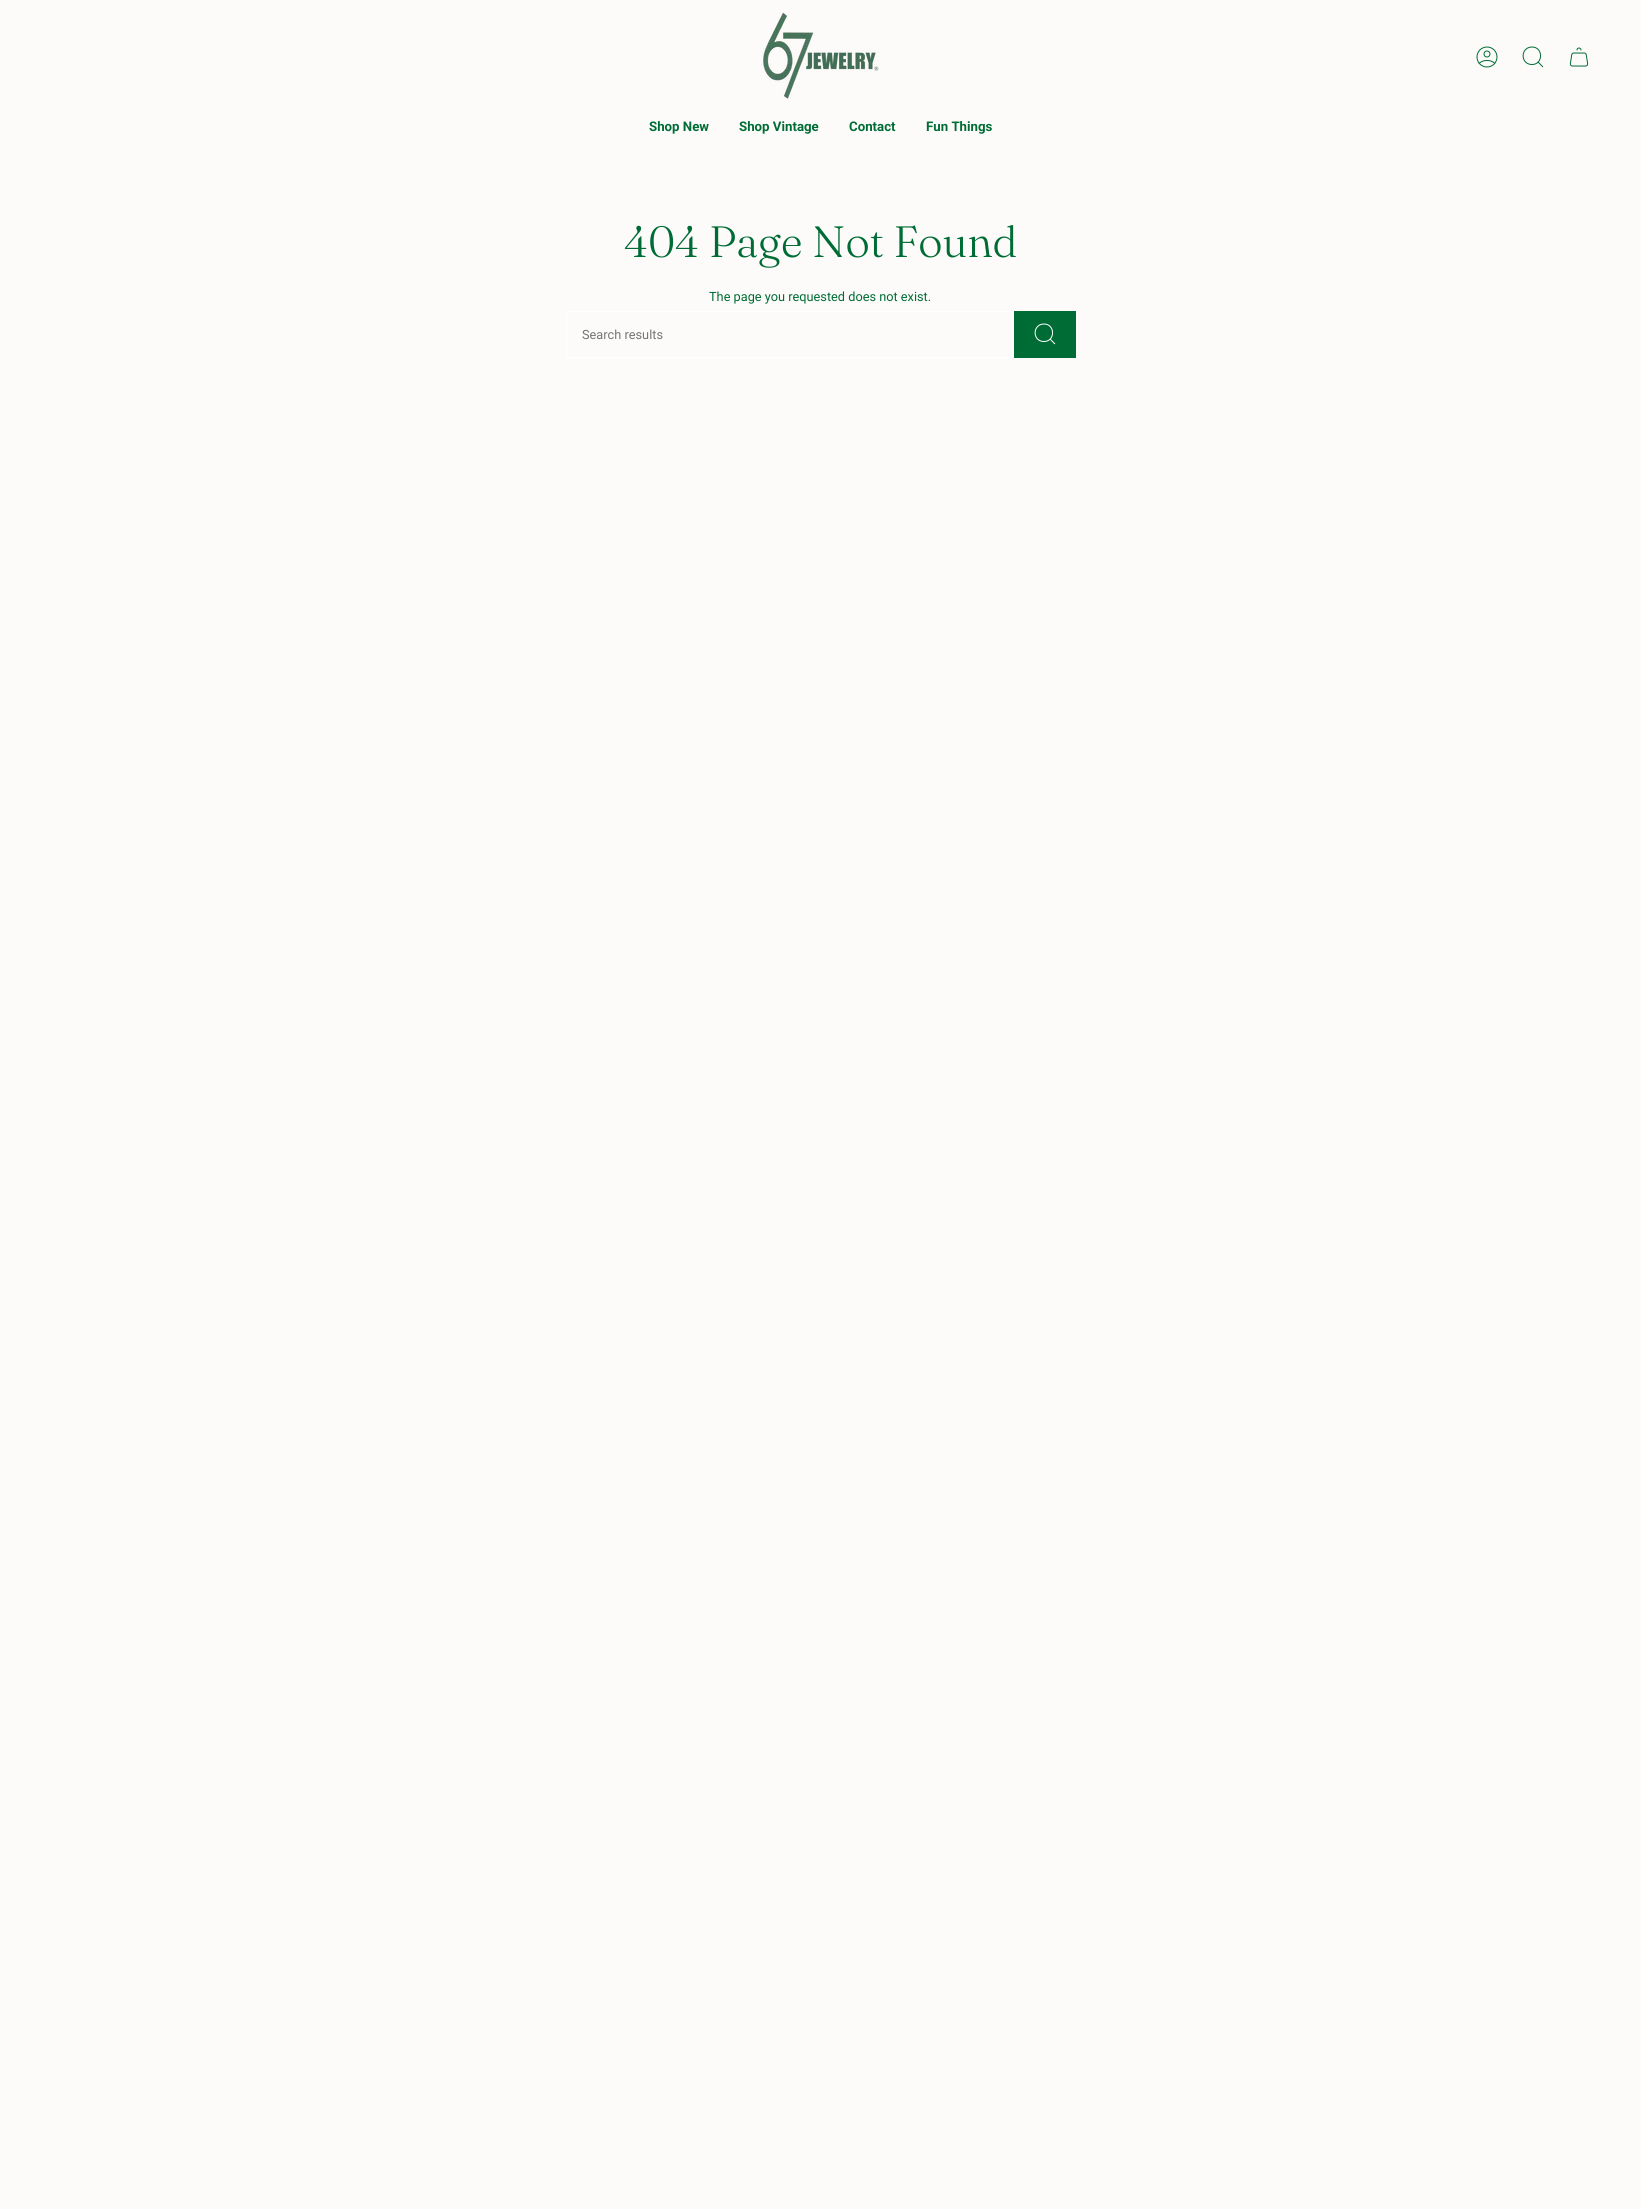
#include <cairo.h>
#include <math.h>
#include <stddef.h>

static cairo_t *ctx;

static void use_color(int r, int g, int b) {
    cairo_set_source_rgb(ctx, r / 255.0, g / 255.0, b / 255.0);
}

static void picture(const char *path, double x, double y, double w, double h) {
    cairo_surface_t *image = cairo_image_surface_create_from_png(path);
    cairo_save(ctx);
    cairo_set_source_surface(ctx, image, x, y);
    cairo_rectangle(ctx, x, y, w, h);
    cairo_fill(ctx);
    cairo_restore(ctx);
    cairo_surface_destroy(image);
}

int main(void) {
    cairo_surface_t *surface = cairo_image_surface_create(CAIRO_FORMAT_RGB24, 1641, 2209);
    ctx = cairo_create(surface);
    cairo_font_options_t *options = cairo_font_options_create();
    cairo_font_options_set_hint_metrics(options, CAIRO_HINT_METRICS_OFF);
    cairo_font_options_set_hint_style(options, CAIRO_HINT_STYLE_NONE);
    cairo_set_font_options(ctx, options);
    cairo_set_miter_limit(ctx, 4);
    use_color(252, 251, 249);
    cairo_paint(ctx);
    picture("img1.png", 763, 12, 116, 87);
    picture("img2.png", 1476, 46, 22, 22);
    cairo_new_path(ctx);
    cairo_move_to(ctx, 1532, 47);
    cairo_curve_to(ctx, 1543.5, 47, 1543.5, 65, 1531.5, 64.5);
    cairo_curve_to(ctx, 1520, 64, 1520.5, 47, 1532, 47);
    cairo_close_path(ctx);
    cairo_move_to(ctx, 1538, 62);
    cairo_line_to(ctx, 1543, 67);
    use_color(0, 108, 53);
    cairo_set_line_width(ctx, 1);
    cairo_stroke(ctx);
    picture("img3.png", 1569, 47, 20, 20);
    cairo_select_font_face(ctx, "Roboto", CAIRO_FONT_SLANT_NORMAL, CAIRO_FONT_WEIGHT_BOLD);
    cairo_set_font_size(ctx, 13.25);
    cairo_move_to(ctx, 649, 131);
    cairo_show_text(ctx, "Shop New");
    cairo_move_to(ctx, 739, 131);
    cairo_show_text(ctx, "Shop Vintage");
    cairo_move_to(ctx, 849, 131);
    cairo_show_text(ctx, "Contact");
    cairo_move_to(ctx, 926, 131);
    cairo_show_text(ctx, "Fun Things");
    cairo_select_font_face(ctx, "Fraunces Light", CAIRO_FONT_SLANT_NORMAL, CAIRO_FONT_WEIGHT_NORMAL);
    cairo_set_font_size(ctx, 43.75);
    cairo_move_to(ctx, 624, 257);
    cairo_show_text(ctx, "404 Page Not Found");
    cairo_select_font_face(ctx, "Roboto", CAIRO_FONT_SLANT_NORMAL, CAIRO_FONT_WEIGHT_NORMAL);
    cairo_set_font_size(ctx, 12.75);
    cairo_move_to(ctx, 709, 301);
    cairo_show_text(ctx, "The page you requested does not exist.");
    cairo_rectangle(ctx, 566.5, 311.5, 447, 46);
    use_color(255, 255, 255);
    cairo_stroke(ctx);
    use_color(117, 117, 117);
    cairo_move_to(ctx, 582, 339);
    cairo_show_text(ctx, "Search results");
    use_color(0, 108, 53);
    cairo_rectangle(ctx, 1014, 311, 62, 47);
    cairo_fill(ctx);
    cairo_new_path(ctx);
    cairo_move_to(ctx, 1044, 324);
    cairo_curve_to(ctx, 1055.5, 324, 1055.5, 342, 1043.5, 341.5);
    cairo_curve_to(ctx, 1032, 341, 1032.5, 324, 1044, 324);
    cairo_close_path(ctx);
    cairo_move_to(ctx, 1050, 339);
    cairo_line_to(ctx, 1055, 344);
    use_color(255, 255, 255);
    cairo_stroke(ctx);
    cairo_surface_write_to_png(surface, "result.png");
    cairo_font_options_destroy(options);
    cairo_destroy(ctx);
    cairo_surface_destroy(surface);
    return 0;
}
